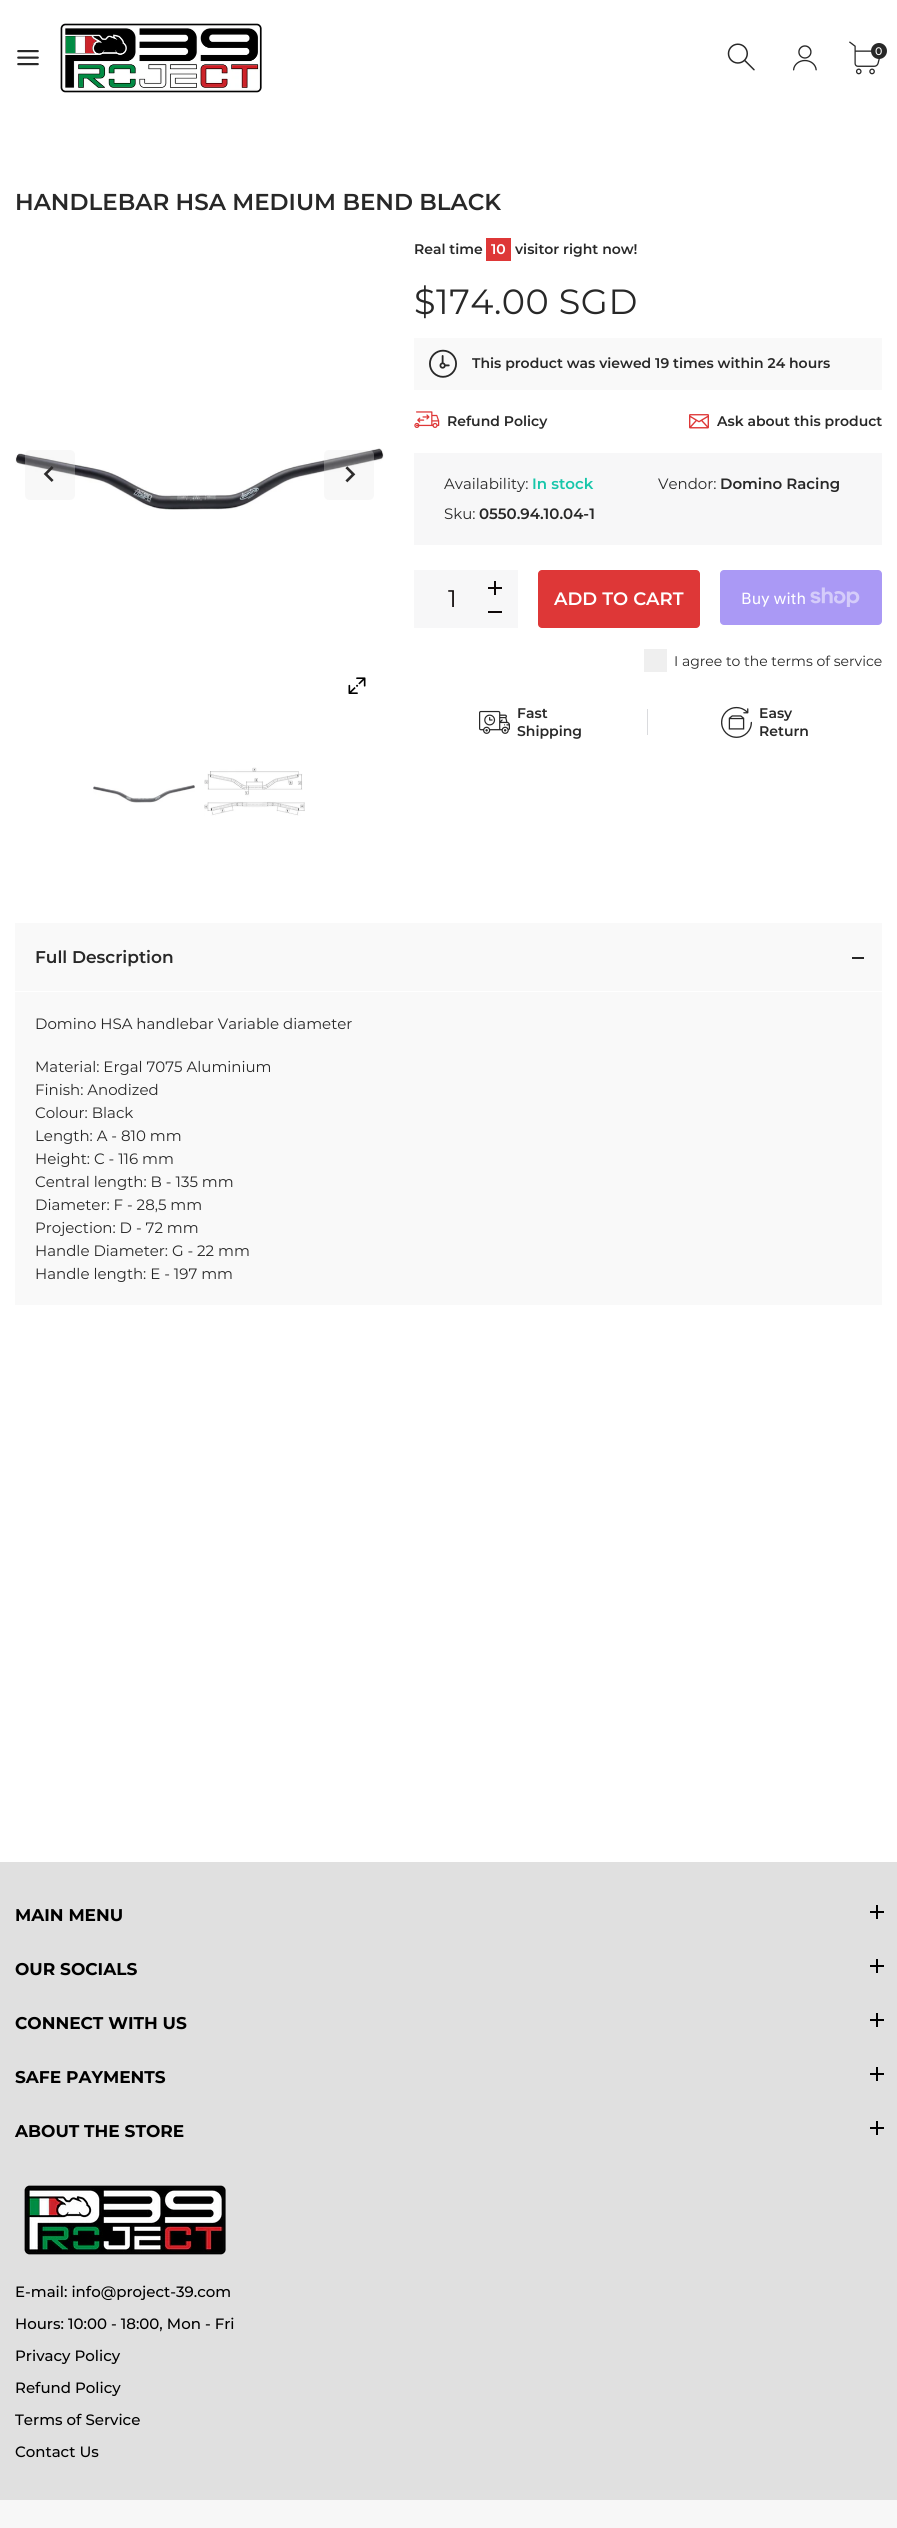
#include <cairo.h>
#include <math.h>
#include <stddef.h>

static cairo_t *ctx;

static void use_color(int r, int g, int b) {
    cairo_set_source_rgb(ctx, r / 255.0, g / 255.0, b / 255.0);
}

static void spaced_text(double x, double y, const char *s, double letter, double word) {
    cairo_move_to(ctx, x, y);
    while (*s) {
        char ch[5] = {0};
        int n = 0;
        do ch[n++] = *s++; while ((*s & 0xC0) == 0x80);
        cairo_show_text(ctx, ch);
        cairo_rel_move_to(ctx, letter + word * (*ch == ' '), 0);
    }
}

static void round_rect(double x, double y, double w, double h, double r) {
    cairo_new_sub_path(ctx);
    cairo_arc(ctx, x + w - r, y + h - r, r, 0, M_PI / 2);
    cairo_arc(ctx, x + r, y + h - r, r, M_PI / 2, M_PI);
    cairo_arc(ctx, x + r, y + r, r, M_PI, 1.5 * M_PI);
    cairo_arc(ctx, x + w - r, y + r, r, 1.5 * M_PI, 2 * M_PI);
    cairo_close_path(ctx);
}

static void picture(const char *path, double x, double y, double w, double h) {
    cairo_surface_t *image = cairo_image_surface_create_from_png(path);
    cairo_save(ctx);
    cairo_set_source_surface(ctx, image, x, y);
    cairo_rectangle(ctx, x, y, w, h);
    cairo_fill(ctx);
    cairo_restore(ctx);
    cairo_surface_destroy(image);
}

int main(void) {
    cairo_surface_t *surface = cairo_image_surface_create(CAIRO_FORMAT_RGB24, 897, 2528);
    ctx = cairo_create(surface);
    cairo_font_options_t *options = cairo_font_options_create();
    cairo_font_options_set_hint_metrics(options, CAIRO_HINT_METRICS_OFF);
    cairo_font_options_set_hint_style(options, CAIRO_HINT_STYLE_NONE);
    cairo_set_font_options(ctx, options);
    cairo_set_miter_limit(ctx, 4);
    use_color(255, 255, 255);
    cairo_paint(ctx);
    picture("img1.png", 17, 50, 22, 16);
    picture("img2.png", 60, 23, 202, 70);
    picture("img3.png", 727, 43, 28, 28);
    picture("img4.png", 793, 45, 24, 26);
    picture("img5.png", 849, 41, 31, 34);
    use_color(40, 40, 40);
    cairo_arc(ctx, 879, 51, 8, 0, 2 * M_PI);
    cairo_fill(ctx);
    cairo_select_font_face(ctx, "Montserrat Medium", CAIRO_FONT_SLANT_NORMAL, CAIRO_FONT_WEIGHT_NORMAL);
    cairo_set_font_size(ctx, 11);
    use_color(255, 255, 255);
    cairo_move_to(ctx, 875, 55);
    cairo_show_text(ctx, "0");
    cairo_select_font_face(ctx, "Montserrat SemiBold", CAIRO_FONT_SLANT_NORMAL, CAIRO_FONT_WEIGHT_NORMAL);
    cairo_set_font_size(ctx, 23);
    use_color(40, 40, 40);
    cairo_move_to(ctx, 15, 210);
    cairo_show_text(ctx, "HANDLEBAR HSA MEDIUM BEND BLACK");
    picture("img6.png", 15, 448, 369, 62);
    cairo_set_source_rgba(ctx, 0.91, 0.91, 0.91, 0.3);
    round_rect(25, 450, 50, 50, 5);
    cairo_fill(ctx);
    picture("img7.png", 43, 466, 11, 16);
    round_rect(324, 450, 50, 50, 5);
    cairo_fill(ctx);
    picture("img8.png", 345, 466, 11, 17);
    picture("img9.png", 348, 677, 18, 17);
    picture("img10.png", 93, 785, 102, 18);
    picture("img11.png", 204, 767, 101, 49);
    cairo_set_font_size(ctx, 14);
    use_color(40, 40, 40);
    cairo_move_to(ctx, 414, 254);
    cairo_show_text(ctx, "Real time");
    use_color(222, 55, 55);
    cairo_rectangle(ctx, 486, 238, 25, 23);
    cairo_fill(ctx);
    use_color(255, 255, 255);
    cairo_move_to(ctx, 491, 254);
    cairo_show_text(ctx, "10");
    use_color(40, 40, 40);
    cairo_move_to(ctx, 515, 254);
    cairo_show_text(ctx, "visitor right now!");
    cairo_select_font_face(ctx, "Montserrat", CAIRO_FONT_SLANT_NORMAL, CAIRO_FONT_WEIGHT_NORMAL);
    cairo_set_font_size(ctx, 35);
    spaced_text(414, 314, "$174.00 SGD", 0.5, 0);
    use_color(249, 249, 249);
    cairo_rectangle(ctx, 414, 338, 468, 52);
    cairo_fill(ctx);
    picture("img12.png", 429, 349, 28, 29);
    cairo_select_font_face(ctx, "Montserrat SemiBold", CAIRO_FONT_SLANT_NORMAL, CAIRO_FONT_WEIGHT_NORMAL);
    cairo_set_font_size(ctx, 14);
    use_color(40, 40, 40);
    cairo_move_to(ctx, 472, 368);
    cairo_show_text(ctx, "This product was viewed 19 times within 24 hours");
    picture("img13.png", 414, 411, 26, 17);
    cairo_move_to(ctx, 447, 426);
    cairo_show_text(ctx, "Refund Policy");
    picture("img14.png", 689, 414, 20, 15);
    cairo_move_to(ctx, 717, 426);
    cairo_show_text(ctx, "Ask about this product");
    use_color(247, 247, 248);
    cairo_rectangle(ctx, 414, 453, 468, 92);
    cairo_fill(ctx);
    cairo_select_font_face(ctx, "Montserrat", CAIRO_FONT_SLANT_NORMAL, CAIRO_FONT_WEIGHT_NORMAL);
    cairo_set_font_size(ctx, 15);
    use_color(40, 40, 40);
    cairo_move_to(ctx, 444, 489);
    cairo_show_text(ctx, "Availability:");
    cairo_select_font_face(ctx, "Montserrat SemiBold", CAIRO_FONT_SLANT_NORMAL, CAIRO_FONT_WEIGHT_NORMAL);
    use_color(23, 198, 170);
    cairo_move_to(ctx, 532, 489);
    cairo_show_text(ctx, "In stock");
    cairo_select_font_face(ctx, "Montserrat", CAIRO_FONT_SLANT_NORMAL, CAIRO_FONT_WEIGHT_NORMAL);
    use_color(40, 40, 40);
    cairo_move_to(ctx, 658, 489);
    cairo_show_text(ctx, "Vendor:");
    cairo_select_font_face(ctx, "Montserrat SemiBold", CAIRO_FONT_SLANT_NORMAL, CAIRO_FONT_WEIGHT_NORMAL);
    cairo_move_to(ctx, 720, 489);
    cairo_show_text(ctx, "Domino Racing");
    cairo_select_font_face(ctx, "Montserrat", CAIRO_FONT_SLANT_NORMAL, CAIRO_FONT_WEIGHT_NORMAL);
    cairo_move_to(ctx, 444, 519);
    cairo_show_text(ctx, "Sku:");
    cairo_select_font_face(ctx, "Montserrat SemiBold", CAIRO_FONT_SLANT_NORMAL, CAIRO_FONT_WEIGHT_NORMAL);
    cairo_move_to(ctx, 479, 519);
    cairo_show_text(ctx, "0550.94.10.04-1");
    use_color(247, 247, 248);
    cairo_rectangle(ctx, 414, 570, 104, 58);
    cairo_fill(ctx);
    use_color(15, 9, 9);
    cairo_rectangle(ctx, 488, 587, 14, 2);
    cairo_fill(ctx);
    cairo_rectangle(ctx, 494, 581, 2, 14);
    cairo_fill(ctx);
    cairo_select_font_face(ctx, "Montserrat", CAIRO_FONT_SLANT_NORMAL, CAIRO_FONT_WEIGHT_NORMAL);
    cairo_set_font_size(ctx, 24);
    cairo_move_to(ctx, 448, 607);
    cairo_show_text(ctx, "1");
    cairo_rectangle(ctx, 488, 611, 14, 2);
    cairo_fill(ctx);
    use_color(222, 55, 55);
    round_rect(538, 570, 162, 58, 4);
    cairo_fill(ctx);
    cairo_select_font_face(ctx, "Montserrat SemiBold", CAIRO_FONT_SLANT_NORMAL, CAIRO_FONT_WEIGHT_NORMAL);
    cairo_set_font_size(ctx, 18);
    use_color(255, 255, 255);
    cairo_move_to(ctx, 554, 605);
    cairo_show_text(ctx, "ADD TO CART");
    use_color(170, 153, 245);
    round_rect(720, 570, 162, 55, 4);
    cairo_fill(ctx);
    cairo_select_font_face(ctx, "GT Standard", CAIRO_FONT_SLANT_NORMAL, CAIRO_FONT_WEIGHT_NORMAL);
    cairo_set_font_size(ctx, 16);
    use_color(255, 255, 255);
    cairo_move_to(ctx, 741, 604);
    cairo_show_text(ctx, "Buy with");
    picture("img15.png", 810, 587, 50, 20);
    use_color(239, 239, 239);
    cairo_rectangle(ctx, 644, 649, 23, 23);
    cairo_fill(ctx);
    cairo_select_font_face(ctx, "Montserrat", CAIRO_FONT_SLANT_NORMAL, CAIRO_FONT_WEIGHT_NORMAL);
    cairo_set_font_size(ctx, 14);
    use_color(40, 40, 40);
    cairo_move_to(ctx, 674, 666);
    cairo_show_text(ctx, "I agree to the terms of service");
    picture("img16.png", 479, 710, 31, 24);
    cairo_select_font_face(ctx, "Montserrat SemiBold", CAIRO_FONT_SLANT_NORMAL, CAIRO_FONT_WEIGHT_NORMAL);
    cairo_move_to(ctx, 517, 718);
    cairo_show_text(ctx, "Fast");
    cairo_move_to(ctx, 517, 736);
    cairo_show_text(ctx, "Shipping");
    use_color(218, 219, 222);
    cairo_rectangle(ctx, 647, 709, 1, 26);
    cairo_fill(ctx);
    picture("img17.png", 721, 706, 31, 32);
    use_color(40, 40, 40);
    cairo_move_to(ctx, 759, 718);
    cairo_show_text(ctx, "Easy");
    cairo_move_to(ctx, 759, 736);
    cairo_show_text(ctx, "Return");
    use_color(249, 249, 249);
    cairo_rectangle(ctx, 15, 923, 867, 68);
    cairo_fill(ctx);
    cairo_set_font_size(ctx, 17);
    use_color(40, 40, 40);
    cairo_move_to(ctx, 35, 963);
    cairo_show_text(ctx, "Full Description");
    cairo_rectangle(ctx, 852, 957, 12, 2);
    cairo_fill(ctx);
    use_color(249, 249, 249);
    cairo_rectangle(ctx, 15, 992, 867, 313);
    cairo_fill(ctx);
    cairo_select_font_face(ctx, "Montserrat", CAIRO_FONT_SLANT_NORMAL, CAIRO_FONT_WEIGHT_NORMAL);
    cairo_set_font_size(ctx, 15);
    use_color(40, 40, 40);
    cairo_move_to(ctx, 35, 1029);
    cairo_show_text(ctx, "Domino HSA handlebar Variable diameter");
    cairo_move_to(ctx, 35, 1072);
    cairo_show_text(ctx, "Material: Ergal 7075 Aluminium");
    cairo_move_to(ctx, 35, 1095);
    cairo_show_text(ctx, "Finish: Anodized");
    cairo_move_to(ctx, 35, 1118);
    cairo_show_text(ctx, "Colour: Black");
    cairo_move_to(ctx, 35, 1141);
    cairo_show_text(ctx, "Length: A - 810 mm");
    cairo_move_to(ctx, 35, 1164);
    cairo_show_text(ctx, "Height: C - 116 mm");
    cairo_move_to(ctx, 35, 1187);
    cairo_show_text(ctx, "Central length: B - 135 mm");
    cairo_move_to(ctx, 35, 1210);
    cairo_show_text(ctx, "Diameter: F - 28,5 mm");
    cairo_move_to(ctx, 35, 1233);
    cairo_show_text(ctx, "Projection: D - 72 mm");
    cairo_move_to(ctx, 35, 1256);
    cairo_show_text(ctx, "Handle Diameter: G - 22 mm");
    cairo_move_to(ctx, 35, 1279);
    cairo_show_text(ctx, "Handle length: E - 197 mm");
    use_color(224, 224, 224);
    cairo_rectangle(ctx, 0, 1862, 897, 638);
    cairo_fill(ctx);
    cairo_select_font_face(ctx, "Montserrat", CAIRO_FONT_SLANT_NORMAL, CAIRO_FONT_WEIGHT_BOLD);
    cairo_set_font_size(ctx, 17);
    use_color(0, 0, 0);
    cairo_move_to(ctx, 15, 1921);
    cairo_show_text(ctx, "MAIN MENU");
    cairo_rectangle(ctx, 876, 1905, 2, 14);
    cairo_fill(ctx);
    cairo_rectangle(ctx, 870, 1911, 14, 2);
    cairo_fill(ctx);
    cairo_move_to(ctx, 15, 1975);
    cairo_show_text(ctx, "OUR SOCIALS");
    cairo_rectangle(ctx, 876, 1959, 2, 14);
    cairo_fill(ctx);
    cairo_rectangle(ctx, 870, 1965, 14, 2);
    cairo_fill(ctx);
    cairo_move_to(ctx, 15, 2029);
    cairo_show_text(ctx, "CONNECT WITH US");
    cairo_rectangle(ctx, 876, 2013, 2, 14);
    cairo_fill(ctx);
    cairo_rectangle(ctx, 870, 2019, 14, 2);
    cairo_fill(ctx);
    cairo_move_to(ctx, 15, 2083);
    cairo_show_text(ctx, "SAFE PAYMENTS");
    cairo_rectangle(ctx, 876, 2067, 2, 14);
    cairo_fill(ctx);
    cairo_rectangle(ctx, 870, 2073, 14, 2);
    cairo_fill(ctx);
    cairo_move_to(ctx, 15, 2137);
    cairo_show_text(ctx, "ABOUT THE STORE");
    cairo_rectangle(ctx, 876, 2121, 2, 14);
    cairo_fill(ctx);
    cairo_rectangle(ctx, 870, 2127, 14, 2);
    cairo_fill(ctx);
    picture("img18.png", 24, 2185, 202, 70);
    cairo_select_font_face(ctx, "Montserrat Medium", CAIRO_FONT_SLANT_NORMAL, CAIRO_FONT_WEIGHT_NORMAL);
    cairo_set_font_size(ctx, 15);
    cairo_move_to(ctx, 15, 2297);
    cairo_show_text(ctx, "E-mail: info@project-39.com");
    cairo_move_to(ctx, 15, 2329);
    cairo_show_text(ctx, "Hours: 10:00 - 18:00, Mon - Fri");
    cairo_move_to(ctx, 15, 2361);
    cairo_show_text(ctx, "Privacy Policy");
    cairo_move_to(ctx, 15, 2393);
    cairo_show_text(ctx, "Refund Policy");
    cairo_move_to(ctx, 15, 2425);
    cairo_show_text(ctx, "Terms of Service");
    cairo_move_to(ctx, 15, 2457);
    cairo_show_text(ctx, "Contact Us");
    use_color(247, 247, 247);
    cairo_rectangle(ctx, 0, 2500, 897, 28);
    cairo_fill(ctx);
    cairo_surface_write_to_png(surface, "result.png");
    cairo_font_options_destroy(options);
    cairo_destroy(ctx);
    cairo_surface_destroy(surface);
    return 0;
}
